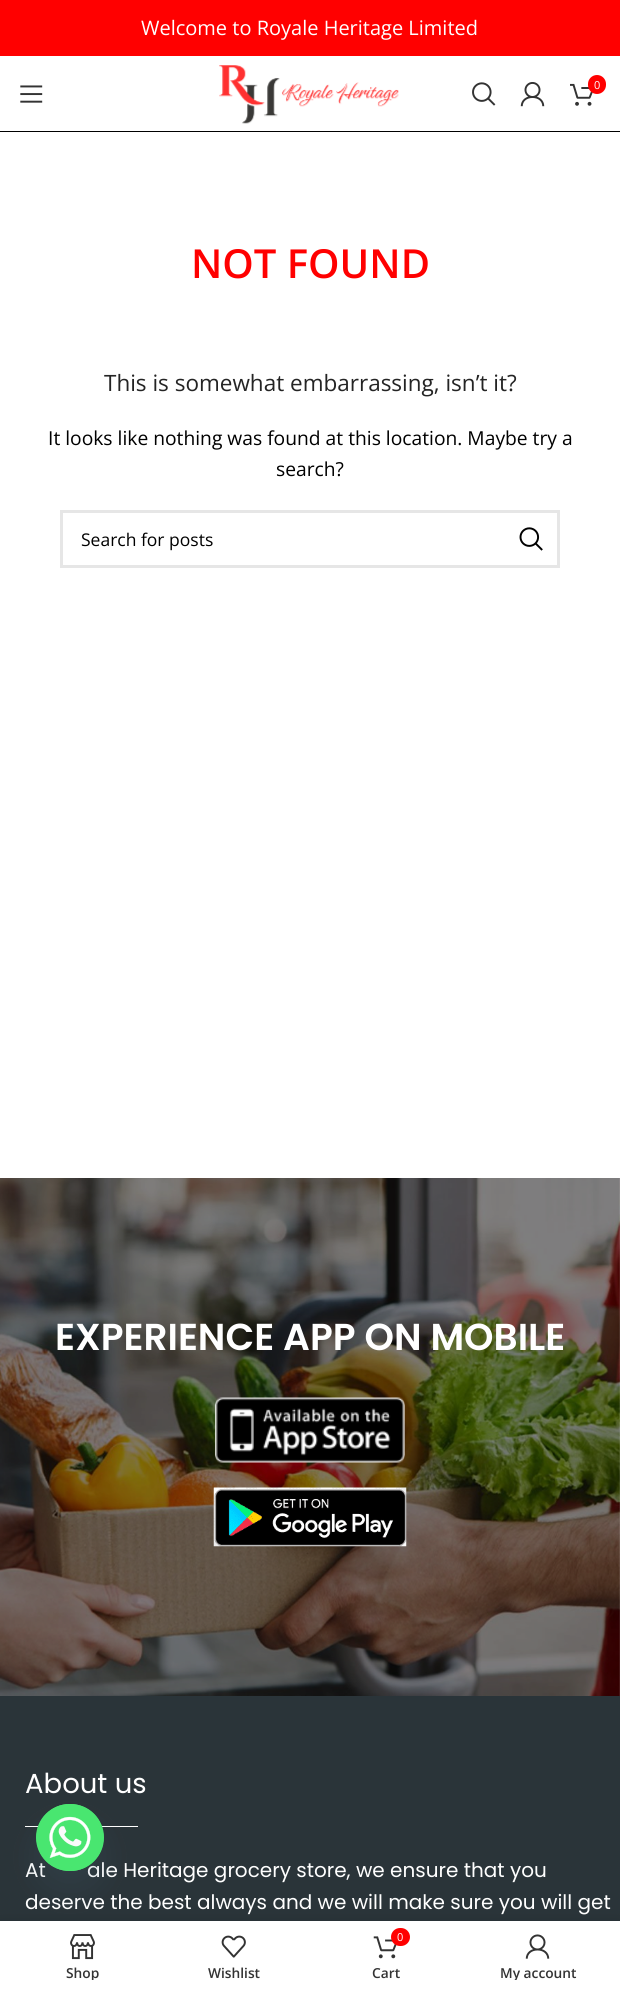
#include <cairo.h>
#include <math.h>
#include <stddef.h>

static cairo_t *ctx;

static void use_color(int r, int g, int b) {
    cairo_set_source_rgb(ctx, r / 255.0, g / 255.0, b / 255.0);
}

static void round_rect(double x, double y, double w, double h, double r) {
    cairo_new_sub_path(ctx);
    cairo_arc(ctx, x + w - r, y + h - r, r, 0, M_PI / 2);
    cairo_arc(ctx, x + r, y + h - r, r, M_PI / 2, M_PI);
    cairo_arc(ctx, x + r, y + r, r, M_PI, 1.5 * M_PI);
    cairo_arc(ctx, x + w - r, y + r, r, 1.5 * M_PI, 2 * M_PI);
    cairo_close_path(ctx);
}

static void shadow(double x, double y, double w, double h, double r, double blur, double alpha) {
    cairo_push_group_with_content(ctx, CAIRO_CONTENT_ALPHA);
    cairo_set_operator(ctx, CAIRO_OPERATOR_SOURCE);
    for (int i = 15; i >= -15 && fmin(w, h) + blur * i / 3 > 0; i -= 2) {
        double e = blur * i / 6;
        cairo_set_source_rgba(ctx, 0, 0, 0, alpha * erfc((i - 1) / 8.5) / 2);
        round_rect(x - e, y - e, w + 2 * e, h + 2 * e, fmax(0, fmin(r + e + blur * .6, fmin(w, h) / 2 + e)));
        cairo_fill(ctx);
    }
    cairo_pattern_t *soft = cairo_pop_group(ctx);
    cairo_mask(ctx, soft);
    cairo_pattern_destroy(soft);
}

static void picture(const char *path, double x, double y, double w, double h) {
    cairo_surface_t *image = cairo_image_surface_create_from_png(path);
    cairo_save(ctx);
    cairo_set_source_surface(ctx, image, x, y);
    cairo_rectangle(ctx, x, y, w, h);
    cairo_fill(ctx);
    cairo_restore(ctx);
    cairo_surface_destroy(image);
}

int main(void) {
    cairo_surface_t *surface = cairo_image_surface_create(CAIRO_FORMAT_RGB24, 620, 1990);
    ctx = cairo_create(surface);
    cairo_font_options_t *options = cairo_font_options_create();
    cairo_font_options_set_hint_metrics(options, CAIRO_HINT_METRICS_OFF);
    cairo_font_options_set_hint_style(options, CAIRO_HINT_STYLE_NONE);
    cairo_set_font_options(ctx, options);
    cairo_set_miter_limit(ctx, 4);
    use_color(255, 255, 255);
    cairo_paint(ctx);
    use_color(255, 0, 0);
    cairo_rectangle(ctx, 0, 0, 620, 56);
    cairo_fill(ctx);
    cairo_select_font_face(ctx, "Open Sans", CAIRO_FONT_SLANT_NORMAL, CAIRO_FONT_WEIGHT_NORMAL);
    cairo_set_font_size(ctx, 20);
    use_color(255, 255, 255);
    cairo_move_to(ctx, 141, 35);
    cairo_show_text(ctx, "Welcome to Royale Heritage Limited");
    use_color(0, 0, 0);
    cairo_rectangle(ctx, 0, 131, 620, 1);
    cairo_fill(ctx);
    picture("img1.png", 20, 85, 23, 18);
    picture("img2.png", 219, 65, 180, 59);
    picture("img3.png", 472, 82, 24, 24);
    picture("img4.png", 520, 82, 25, 25);
    picture("img5.png", 570, 83, 23, 23);
    use_color(255, 0, 0);
    round_rect(588, 75, 18, 19, 9);
    cairo_fill(ctx);
    cairo_set_font_size(ctx, 11);
    use_color(255, 255, 255);
    cairo_move_to(ctx, 594, 89);
    cairo_show_text(ctx, "0");
    cairo_select_font_face(ctx, "Open Sans SemiBold", CAIRO_FONT_SLANT_NORMAL, CAIRO_FONT_WEIGHT_NORMAL);
    cairo_set_font_size(ctx, 40);
    use_color(255, 0, 0);
    cairo_move_to(ctx, 191, 278);
    cairo_show_text(ctx, "NOT FOUND");
    cairo_select_font_face(ctx, "Open Sans", CAIRO_FONT_SLANT_NORMAL, CAIRO_FONT_WEIGHT_NORMAL);
    cairo_set_font_size(ctx, 22.5);
    use_color(36, 36, 36);
    cairo_move_to(ctx, 104, 391);
    cairo_show_text(ctx, "This is somewhat embarrassing, isn’t it?");
    cairo_set_font_size(ctx, 19.25);
    use_color(0, 0, 0);
    cairo_move_to(ctx, 48, 445);
    cairo_show_text(ctx, "It looks like nothing was found at this location. Maybe try a");
    cairo_move_to(ctx, 276, 476);
    cairo_show_text(ctx, "search?");
    cairo_rectangle(ctx, 61.5, 511.5, 497, 55);
    use_color(230, 230, 230);
    cairo_set_line_width(ctx, 3);
    cairo_stroke(ctx);
    cairo_set_font_size(ctx, 17.5);
    use_color(0, 0, 0);
    cairo_move_to(ctx, 81, 546);
    cairo_show_text(ctx, "Search for posts");
    picture("img6.png", 519, 527, 24, 24);
    picture("img7.png", 0, 1178, 620, 518);
    cairo_select_font_face(ctx, "Poppins SemiBold", CAIRO_FONT_SLANT_NORMAL, CAIRO_FONT_WEIGHT_NORMAL);
    cairo_set_font_size(ctx, 37.5);
    use_color(255, 255, 255);
    cairo_move_to(ctx, 55, 1350);
    cairo_show_text(ctx, "EXPERIENCE APP ON MOBILE");
    picture("img8.png", 215, 1397, 190, 66);
    picture("img9.png", 213, 1487, 194, 60);
    use_color(42, 52, 57);
    cairo_rectangle(ctx, 0, 1696, 620, 225);
    cairo_fill(ctx);
    cairo_select_font_face(ctx, "Poppins", CAIRO_FONT_SLANT_NORMAL, CAIRO_FONT_WEIGHT_NORMAL);
    cairo_set_font_size(ctx, 27.5);
    use_color(255, 255, 255);
    cairo_move_to(ctx, 25, 1793);
    cairo_show_text(ctx, "About us");
    cairo_rectangle(ctx, 25, 1826, 113, 1);
    cairo_fill(ctx);
    cairo_set_font_size(ctx, 20);
    cairo_move_to(ctx, 25, 1877);
    cairo_show_text(ctx, "At");
    cairo_move_to(ctx, 87, 1877);
    cairo_show_text(ctx, "ale Heritage grocery store, we ensure that you");
    cairo_move_to(ctx, 25, 1909);
    cairo_show_text(ctx, "deserve the best always and we will make sure you will get");
    use_color(0, 0, 0);
    shadow(0, 1921, 620, 69, 0, 5.5, 0.12);
    use_color(255, 255, 255);
    cairo_rectangle(ctx, 0, 1921, 620, 69);
    cairo_fill(ctx);
    picture("img11.png", 70, 1934, 25, 26);
    use_color(73, 104, 126);
    shadow(36, 1824, 68, 67, 33.5, 15, 0.16);
    use_color(73, 230, 112);
    round_rect(36, 1804, 68, 67, 33.5);
    cairo_fill(ctx);
    picture("img10.png", 36, 1804, 68, 67);
    cairo_save(ctx);
    cairo_rectangle(ctx, 19, 1964, 127, 16);
    cairo_clip(ctx);
    cairo_select_font_face(ctx, "Open Sans SemiBold", CAIRO_FONT_SLANT_NORMAL, CAIRO_FONT_WEIGHT_NORMAL);
    cairo_set_font_size(ctx, 13.75);
    use_color(51, 51, 51);
    cairo_move_to(ctx, 66, 1978);
    cairo_show_text(ctx, "Shop");
    cairo_restore(ctx);
    picture("img12.png", 221, 1935, 25, 23);
    cairo_select_font_face(ctx, "Open Sans SemiBold", CAIRO_FONT_SLANT_NORMAL, CAIRO_FONT_WEIGHT_NORMAL);
    cairo_set_font_size(ctx, 13.75);
    use_color(51, 51, 51);
    cairo_move_to(ctx, 208, 1978);
    cairo_show_text(ctx, "Wishlist");
    picture("img13.png", 373, 1936, 24, 23);
    use_color(255, 0, 0);
    round_rect(391, 1928, 19, 18, 9);
    cairo_fill(ctx);
    cairo_select_font_face(ctx, "Open Sans", CAIRO_FONT_SLANT_NORMAL, CAIRO_FONT_WEIGHT_NORMAL);
    cairo_set_font_size(ctx, 11);
    use_color(255, 255, 255);
    cairo_move_to(ctx, 397, 1941);
    cairo_show_text(ctx, "0");
    cairo_select_font_face(ctx, "Open Sans SemiBold", CAIRO_FONT_SLANT_NORMAL, CAIRO_FONT_WEIGHT_NORMAL);
    cairo_set_font_size(ctx, 13.75);
    use_color(51, 51, 51);
    cairo_move_to(ctx, 372, 1978);
    cairo_show_text(ctx, "Cart");
    picture("img14.png", 525, 1934, 25, 25);
    cairo_save(ctx);
    cairo_rectangle(ctx, 475, 1964, 126, 16);
    cairo_clip(ctx);
    cairo_move_to(ctx, 500, 1978);
    cairo_show_text(ctx, "My account");
    cairo_restore(ctx);
    cairo_surface_write_to_png(surface, "result.png");
    cairo_font_options_destroy(options);
    cairo_destroy(ctx);
    cairo_surface_destroy(surface);
    return 0;
}
